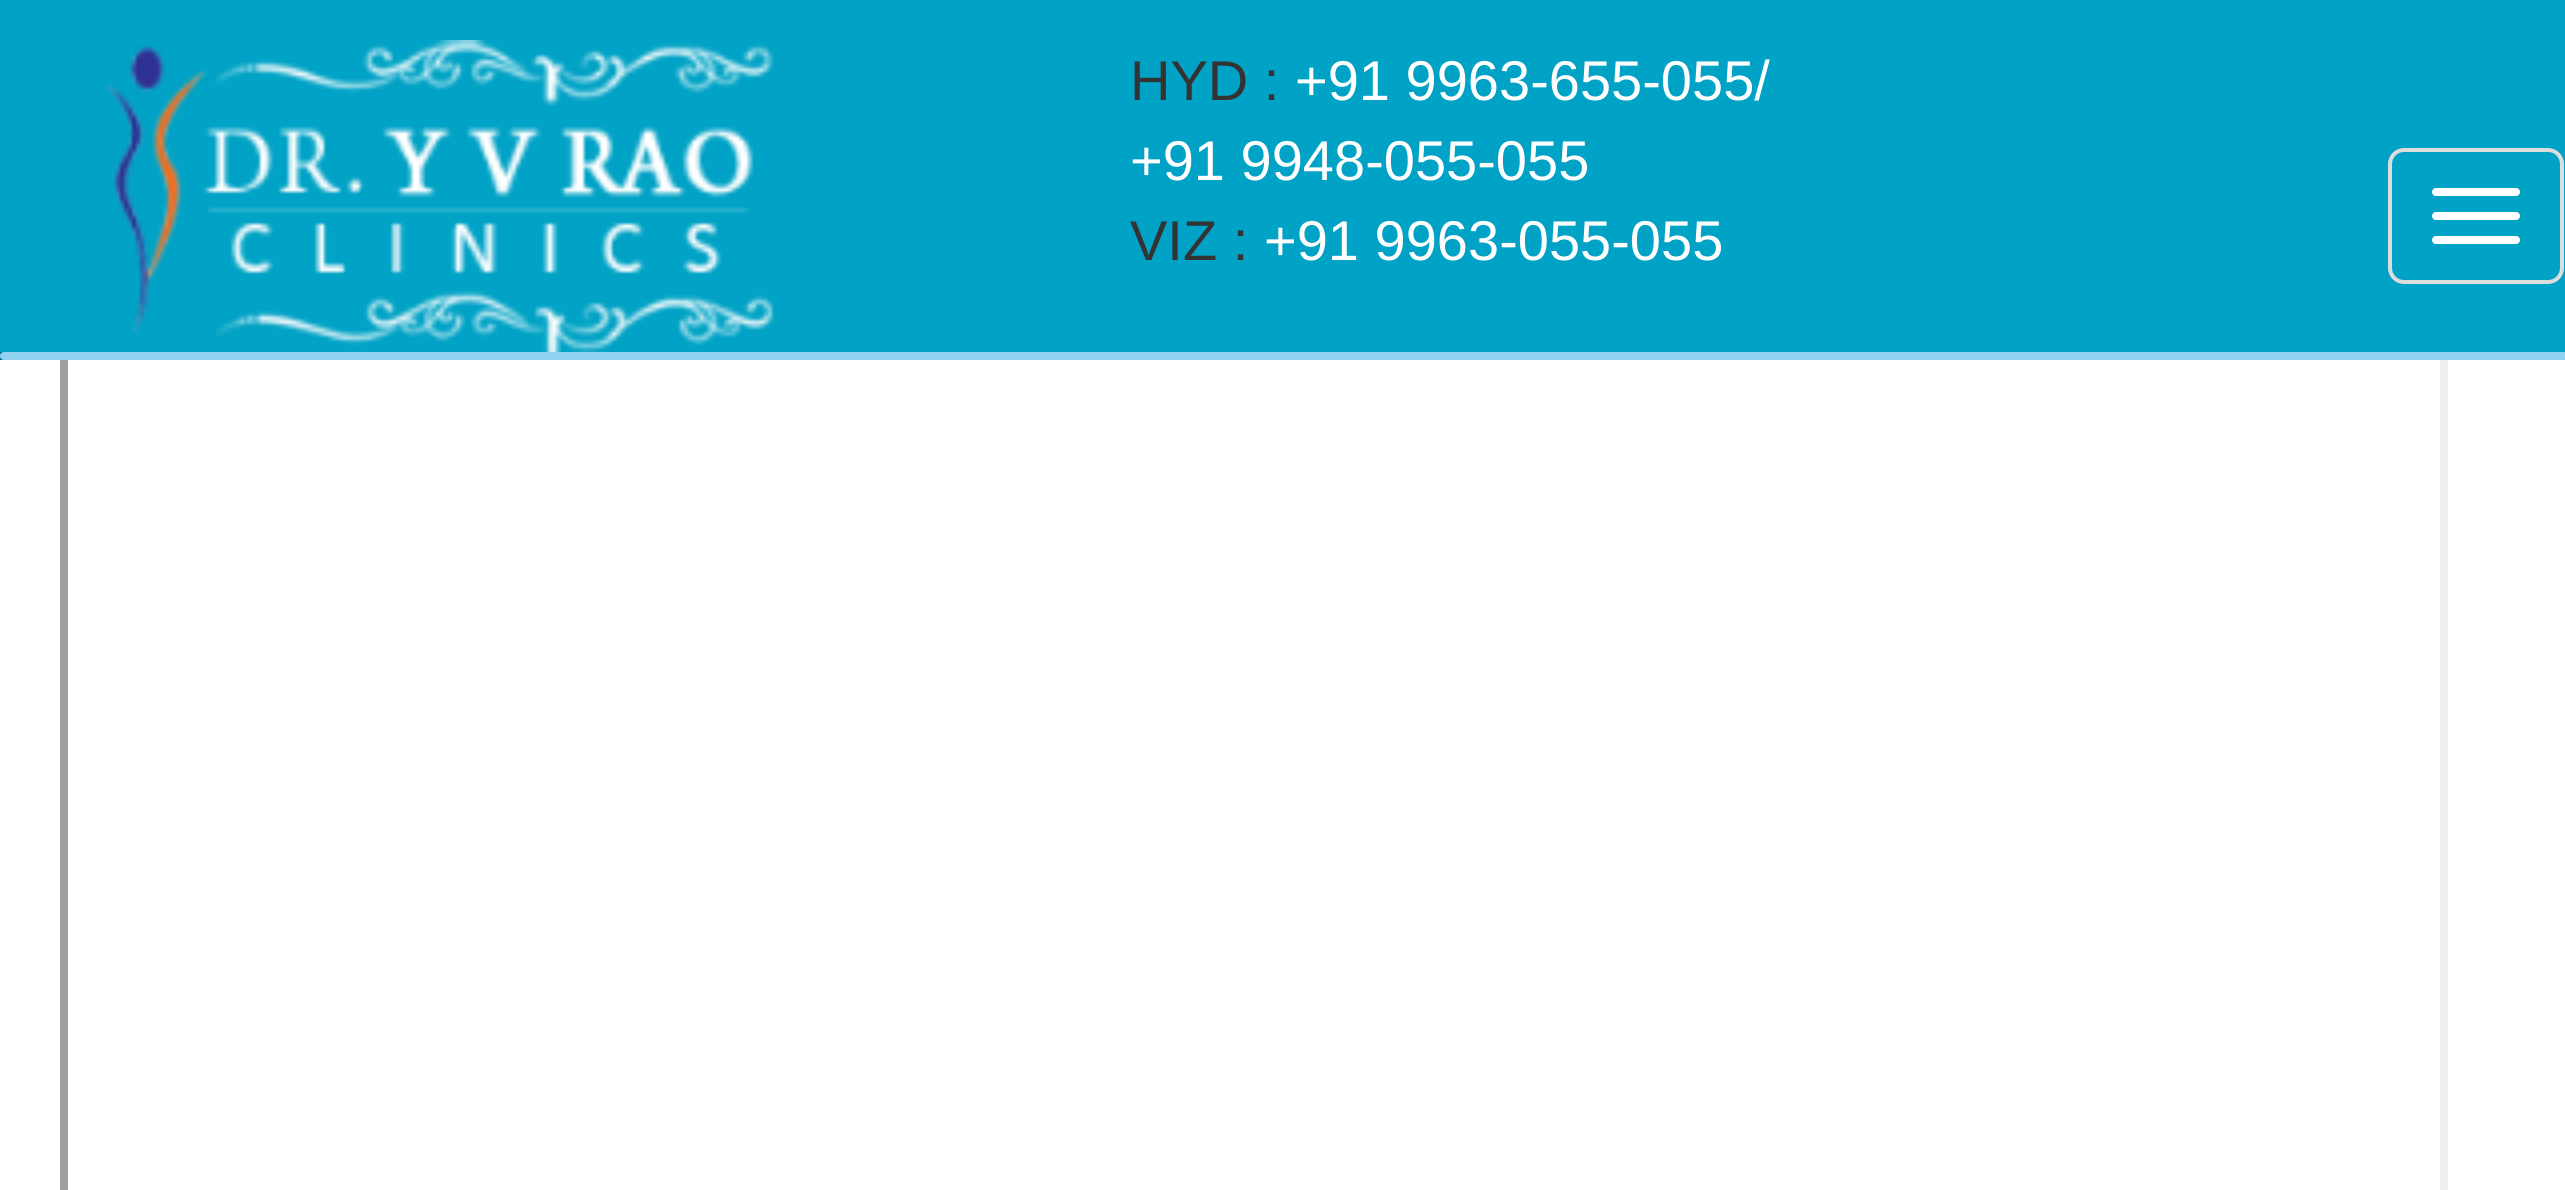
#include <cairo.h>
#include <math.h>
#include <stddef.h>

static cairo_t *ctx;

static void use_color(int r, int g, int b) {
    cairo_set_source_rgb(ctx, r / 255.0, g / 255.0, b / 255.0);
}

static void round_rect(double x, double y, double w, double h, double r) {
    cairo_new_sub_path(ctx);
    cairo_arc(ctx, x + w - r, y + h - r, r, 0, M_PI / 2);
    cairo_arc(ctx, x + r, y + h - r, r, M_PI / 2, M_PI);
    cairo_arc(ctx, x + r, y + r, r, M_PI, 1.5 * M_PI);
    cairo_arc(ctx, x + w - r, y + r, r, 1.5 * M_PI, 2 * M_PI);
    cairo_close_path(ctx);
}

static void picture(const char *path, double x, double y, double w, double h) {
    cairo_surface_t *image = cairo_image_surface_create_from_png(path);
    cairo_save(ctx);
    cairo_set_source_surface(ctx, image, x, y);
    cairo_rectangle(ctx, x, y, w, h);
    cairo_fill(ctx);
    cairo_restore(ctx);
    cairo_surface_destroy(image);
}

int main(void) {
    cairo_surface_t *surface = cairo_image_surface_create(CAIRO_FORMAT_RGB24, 2565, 1190);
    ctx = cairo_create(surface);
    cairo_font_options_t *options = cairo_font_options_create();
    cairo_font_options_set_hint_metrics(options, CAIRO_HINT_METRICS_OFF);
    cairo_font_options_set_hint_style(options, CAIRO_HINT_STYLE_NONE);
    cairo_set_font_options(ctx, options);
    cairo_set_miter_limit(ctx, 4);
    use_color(255, 255, 255);
    cairo_paint(ctx);
    use_color(159, 159, 159);
    cairo_new_path(ctx);
    cairo_move_to(ctx, 60, 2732);
    cairo_line_to(ctx, 60, 332);
    cairo_line_to(ctx, 68, 340);
    cairo_line_to(ctx, 68, 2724);
    cairo_close_path(ctx);
    cairo_fill(ctx);
    use_color(238, 238, 238);
    cairo_new_path(ctx);
    cairo_move_to(ctx, 2448, 332);
    cairo_line_to(ctx, 2448, 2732);
    cairo_line_to(ctx, 2440, 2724);
    cairo_line_to(ctx, 2440, 340);
    cairo_close_path(ctx);
    cairo_fill(ctx);
    use_color(0, 162, 197);
    cairo_rectangle(ctx, 0, 0, 2565, 352);
    cairo_fill(ctx);
    picture("img1.png", 105, 40, 669, 312);
    cairo_select_font_face(ctx, "Liberation Sans", CAIRO_FONT_SLANT_NORMAL, CAIRO_FONT_WEIGHT_NORMAL);
    cairo_set_font_size(ctx, 56);
    use_color(51, 51, 51);
    cairo_move_to(ctx, 1130, 100);
    cairo_show_text(ctx, "HYD :");
    use_color(255, 255, 255);
    cairo_move_to(ctx, 1295, 100);
    cairo_show_text(ctx, "+91 9963-655-055/");
    cairo_move_to(ctx, 1130, 180);
    cairo_show_text(ctx, "+91 9948-055-055");
    use_color(51, 51, 51);
    cairo_move_to(ctx, 1130, 260);
    cairo_show_text(ctx, "VIZ :");
    use_color(255, 255, 255);
    cairo_move_to(ctx, 1264, 260);
    cairo_show_text(ctx, "+91 9963-055-055");
    use_color(0, 109, 150);
    cairo_rectangle(ctx, 0, 352, 2565, 8);
    cairo_fill(ctx);
    use_color(145, 209, 241);
    round_rect(0, 352, 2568, 8, 4);
    cairo_fill(ctx);
    round_rect(2390, 150, 172, 132, 14);
    use_color(221, 221, 221);
    cairo_set_line_width(ctx, 4);
    cairo_stroke(ctx);
    use_color(255, 255, 255);
    round_rect(2432, 188, 88, 8, 4);
    cairo_fill(ctx);
    round_rect(2432, 212, 88, 8, 4);
    cairo_fill(ctx);
    round_rect(2432, 236, 88, 8, 4);
    cairo_fill(ctx);
    cairo_surface_write_to_png(surface, "result.png");
    cairo_font_options_destroy(options);
    cairo_destroy(ctx);
    cairo_surface_destroy(surface);
    return 0;
}
